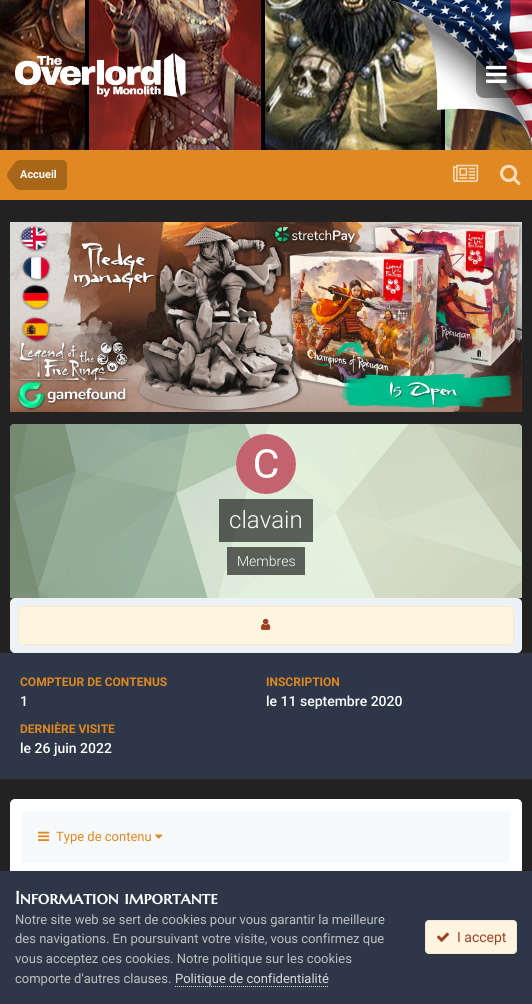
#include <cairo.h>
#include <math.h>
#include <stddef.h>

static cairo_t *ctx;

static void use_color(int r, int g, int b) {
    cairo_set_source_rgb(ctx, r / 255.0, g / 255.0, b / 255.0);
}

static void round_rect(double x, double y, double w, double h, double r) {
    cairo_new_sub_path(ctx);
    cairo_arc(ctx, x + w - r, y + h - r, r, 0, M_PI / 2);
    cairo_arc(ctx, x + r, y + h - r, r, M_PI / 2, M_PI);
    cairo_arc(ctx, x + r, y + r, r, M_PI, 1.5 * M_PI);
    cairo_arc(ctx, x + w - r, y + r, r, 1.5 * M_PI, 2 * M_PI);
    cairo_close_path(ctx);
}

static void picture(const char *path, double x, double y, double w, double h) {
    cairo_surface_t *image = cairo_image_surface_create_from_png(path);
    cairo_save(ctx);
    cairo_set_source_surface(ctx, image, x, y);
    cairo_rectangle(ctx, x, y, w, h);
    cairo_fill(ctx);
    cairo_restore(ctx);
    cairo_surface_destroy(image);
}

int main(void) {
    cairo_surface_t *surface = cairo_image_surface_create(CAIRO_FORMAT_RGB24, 532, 1004);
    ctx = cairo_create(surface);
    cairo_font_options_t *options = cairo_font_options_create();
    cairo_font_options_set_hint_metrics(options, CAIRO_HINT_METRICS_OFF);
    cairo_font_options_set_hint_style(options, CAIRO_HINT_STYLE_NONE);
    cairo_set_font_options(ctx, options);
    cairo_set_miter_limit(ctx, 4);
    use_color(34, 34, 34);
    cairo_paint(ctx);
    picture("img2.png", 0, 0, 532, 150);
    picture("img1.png", 389, 0, 143, 149);
    picture("img3.png", 15, 53, 171, 44);
    cairo_set_source_rgba(ctx, 0, 0, 0, 0.4);
    round_rect(476, 52, 41, 46, 8);
    cairo_fill(ctx);
    picture("img4.png", 486, 65, 21, 18);
    use_color(224, 136, 33);
    cairo_rectangle(ctx, 0, 150, 532, 50);
    cairo_fill(ctx);
    use_color(168, 102, 25);
    cairo_new_path(ctx);
    cairo_move_to(ctx, 20, 160);
    cairo_line_to(ctx, 62, 160);
    cairo_curve_to(ctx, 65, 160, 67, 162, 67, 165);
    cairo_line_to(ctx, 67, 185);
    cairo_curve_to(ctx, 67, 188, 65, 190, 62, 190);
    cairo_line_to(ctx, 20, 190);
    cairo_close_path(ctx);
    cairo_fill(ctx);
    cairo_new_path(ctx);
    cairo_move_to(ctx, 20, 175);
    cairo_line_to(ctx, 20, 190);
    cairo_curve_to(ctx, 15.5, 190, 13.5, 185.5, 11, 182);
    cairo_curve_to(ctx, 9.5, 180, 7, 178, 7, 175);
    cairo_close_path(ctx);
    cairo_move_to(ctx, 20, 175);
    cairo_line_to(ctx, 7, 175);
    cairo_curve_to(ctx, 7, 172, 9.5, 170, 11, 168);
    cairo_curve_to(ctx, 13.5, 164.5, 15.5, 160, 20, 160);
    cairo_close_path(ctx);
    cairo_fill(ctx);
    cairo_select_font_face(ctx, "Roboto", CAIRO_FONT_SLANT_NORMAL, CAIRO_FONT_WEIGHT_BOLD);
    cairo_set_font_size(ctx, 11);
    use_color(255, 255, 255);
    cairo_move_to(ctx, 20, 178);
    cairo_show_text(ctx, "Accueil");
    picture("img5.png", 453, 164, 26, 18);
    picture("img6.png", 500, 164, 21, 22);
    picture("img7.png", 10, 222, 512, 190);
    use_color(180, 255, 153);
    cairo_new_path(ctx);
    cairo_move_to(ctx, 14, 424);
    cairo_line_to(ctx, 518, 424);
    cairo_curve_to(ctx, 520, 424, 522, 426, 522, 428);
    cairo_line_to(ctx, 522, 598);
    cairo_line_to(ctx, 10, 598);
    cairo_line_to(ctx, 10, 428);
    cairo_curve_to(ctx, 10, 426, 12, 424, 14, 424);
    cairo_close_path(ctx);
    cairo_fill(ctx);
    picture("img8.png", 10, 424, 512, 174);
    use_color(255, 255, 255);
    cairo_arc(ctx, 266, 464, 30, 0, 2 * M_PI);
    cairo_fill(ctx);
    picture("img9.png", 236, 434, 60, 60);
    cairo_set_source_rgba(ctx, 0, 0, 0, 0.6);
    cairo_rectangle(ctx, 219, 499, 94, 43);
    cairo_fill(ctx);
    cairo_select_font_face(ctx, "Roboto Light", CAIRO_FONT_SLANT_NORMAL, CAIRO_FONT_WEIGHT_NORMAL);
    cairo_set_font_size(ctx, 24);
    use_color(255, 255, 255);
    cairo_move_to(ctx, 229, 528);
    cairo_show_text(ctx, "clavain");
    cairo_set_source_rgba(ctx, 0, 0, 0, 0.6);
    cairo_rectangle(ctx, 227, 547, 78, 28);
    cairo_fill(ctx);
    cairo_set_font_size(ctx, 14);
    use_color(255, 255, 255);
    cairo_move_to(ctx, 237, 566);
    cairo_show_text(ctx, "Membres");
    use_color(237, 242, 247);
    round_rect(10, 598, 512, 55, 5);
    cairo_fill(ctx);
    use_color(255, 244, 223);
    round_rect(18, 606, 496, 39, 4);
    cairo_fill(ctx);
    round_rect(18.5, 606.5, 495, 38, 3.5);
    cairo_set_source_rgba(ctx, 0.612, 0.259, 0.129, 0.07);
    cairo_set_line_width(ctx, 1);
    cairo_stroke(ctx);
    picture("img10.png", 261, 618, 10, 12);
    use_color(45, 55, 72);
    cairo_rectangle(ctx, 0, 653, 532, 126);
    cairo_fill(ctx);
    cairo_select_font_face(ctx, "Roboto", CAIRO_FONT_SLANT_NORMAL, CAIRO_FONT_WEIGHT_BOLD);
    cairo_set_font_size(ctx, 12);
    use_color(224, 136, 33);
    cairo_move_to(ctx, 20, 686);
    cairo_show_text(ctx, "COMPTEUR DE CONTENUS");
    cairo_select_font_face(ctx, "Roboto Medium", CAIRO_FONT_SLANT_NORMAL, CAIRO_FONT_WEIGHT_NORMAL);
    cairo_set_font_size(ctx, 14);
    use_color(255, 255, 255);
    cairo_move_to(ctx, 20, 706);
    cairo_show_text(ctx, "1");
    cairo_select_font_face(ctx, "Roboto", CAIRO_FONT_SLANT_NORMAL, CAIRO_FONT_WEIGHT_BOLD);
    cairo_set_font_size(ctx, 12);
    use_color(224, 136, 33);
    cairo_move_to(ctx, 266, 686);
    cairo_show_text(ctx, "INSCRIPTION");
    cairo_select_font_face(ctx, "Roboto Medium", CAIRO_FONT_SLANT_NORMAL, CAIRO_FONT_WEIGHT_NORMAL);
    cairo_set_font_size(ctx, 14);
    use_color(255, 255, 255);
    cairo_move_to(ctx, 266, 706);
    cairo_show_text(ctx, "le 11 septembre 2020");
    cairo_select_font_face(ctx, "Roboto", CAIRO_FONT_SLANT_NORMAL, CAIRO_FONT_WEIGHT_BOLD);
    cairo_set_font_size(ctx, 12);
    use_color(224, 136, 33);
    cairo_move_to(ctx, 20, 733);
    cairo_show_text(ctx, "DERNIÈRE VISITE");
    cairo_select_font_face(ctx, "Roboto Medium", CAIRO_FONT_SLANT_NORMAL, CAIRO_FONT_WEIGHT_NORMAL);
    cairo_set_font_size(ctx, 14);
    use_color(255, 255, 255);
    cairo_move_to(ctx, 20, 753);
    cairo_show_text(ctx, "le 26 juin 2022");
    round_rect(10, 799, 512, 76, 5);
    cairo_fill(ctx);
    use_color(247, 250, 252);
    cairo_rectangle(ctx, 22, 811, 488, 52);
    cairo_fill(ctx);
    picture("img11.png", 38, 831, 12, 10);
    cairo_select_font_face(ctx, "Roboto", CAIRO_FONT_SLANT_NORMAL, CAIRO_FONT_WEIGHT_NORMAL);
    cairo_set_font_size(ctx, 13);
    use_color(224, 136, 33);
    cairo_move_to(ctx, 56, 841);
    cairo_show_text(ctx, "Type de contenu");
    picture("img12.png", 155, 834, 8, 5);
    use_color(45, 55, 72);
    cairo_rectangle(ctx, 0, 871, 532, 133);
    cairo_fill(ctx);
    cairo_select_font_face(ctx, "Marcellus SC", CAIRO_FONT_SLANT_NORMAL, CAIRO_FONT_WEIGHT_BOLD);
    cairo_set_font_size(ctx, 18);
    use_color(255, 255, 255);
    cairo_move_to(ctx, 15, 904);
    cairo_show_text(ctx, "Information importante");
    cairo_select_font_face(ctx, "Roboto", CAIRO_FONT_SLANT_NORMAL, CAIRO_FONT_WEIGHT_NORMAL);
    cairo_set_font_size(ctx, 13);
    use_color(192, 192, 192);
    cairo_move_to(ctx, 15, 924);
    cairo_show_text(ctx, "Notre site web se sert de cookies pour vous garantir la meilleure");
    cairo_move_to(ctx, 15, 943);
    cairo_show_text(ctx, "des navigations. En poursuivant votre visite, vous confirmez que");
    cairo_move_to(ctx, 15, 963);
    cairo_show_text(ctx, "vous acceptez ces cookies. Notre politique sur les cookies");
    cairo_move_to(ctx, 15, 983);
    cairo_show_text(ctx, "comporte d'autres clauses.");
    use_color(218, 218, 218);
    cairo_move_to(ctx, 175, 983);
    cairo_show_text(ctx, "Politique de confidentialité");
    cairo_new_path(ctx);
    cairo_move_to(ctx, 175, 986.5);
    cairo_line_to(ctx, 329, 986.5);
    cairo_set_dash(ctx, (double[]){1, 1}, 2, 0);
    cairo_stroke(ctx);
    use_color(255, 244, 223);
    round_rect(425, 920, 92, 34, 4);
    cairo_fill(ctx);
    round_rect(425.5, 920.5, 91, 33, 3.5);
    cairo_set_source_rgba(ctx, 0.612, 0.259, 0.129, 0.07);
    cairo_set_dash(ctx, NULL, 0, 0);
    cairo_stroke(ctx);
    picture("img13.png", 437, 932, 12, 10);
    cairo_set_font_size(ctx, 14);
    use_color(156, 66, 33);
    cairo_move_to(ctx, 457, 942);
    cairo_show_text(ctx, "I accept");
    cairo_surface_write_to_png(surface, "result.png");
    cairo_font_options_destroy(options);
    cairo_destroy(ctx);
    cairo_surface_destroy(surface);
    return 0;
}
